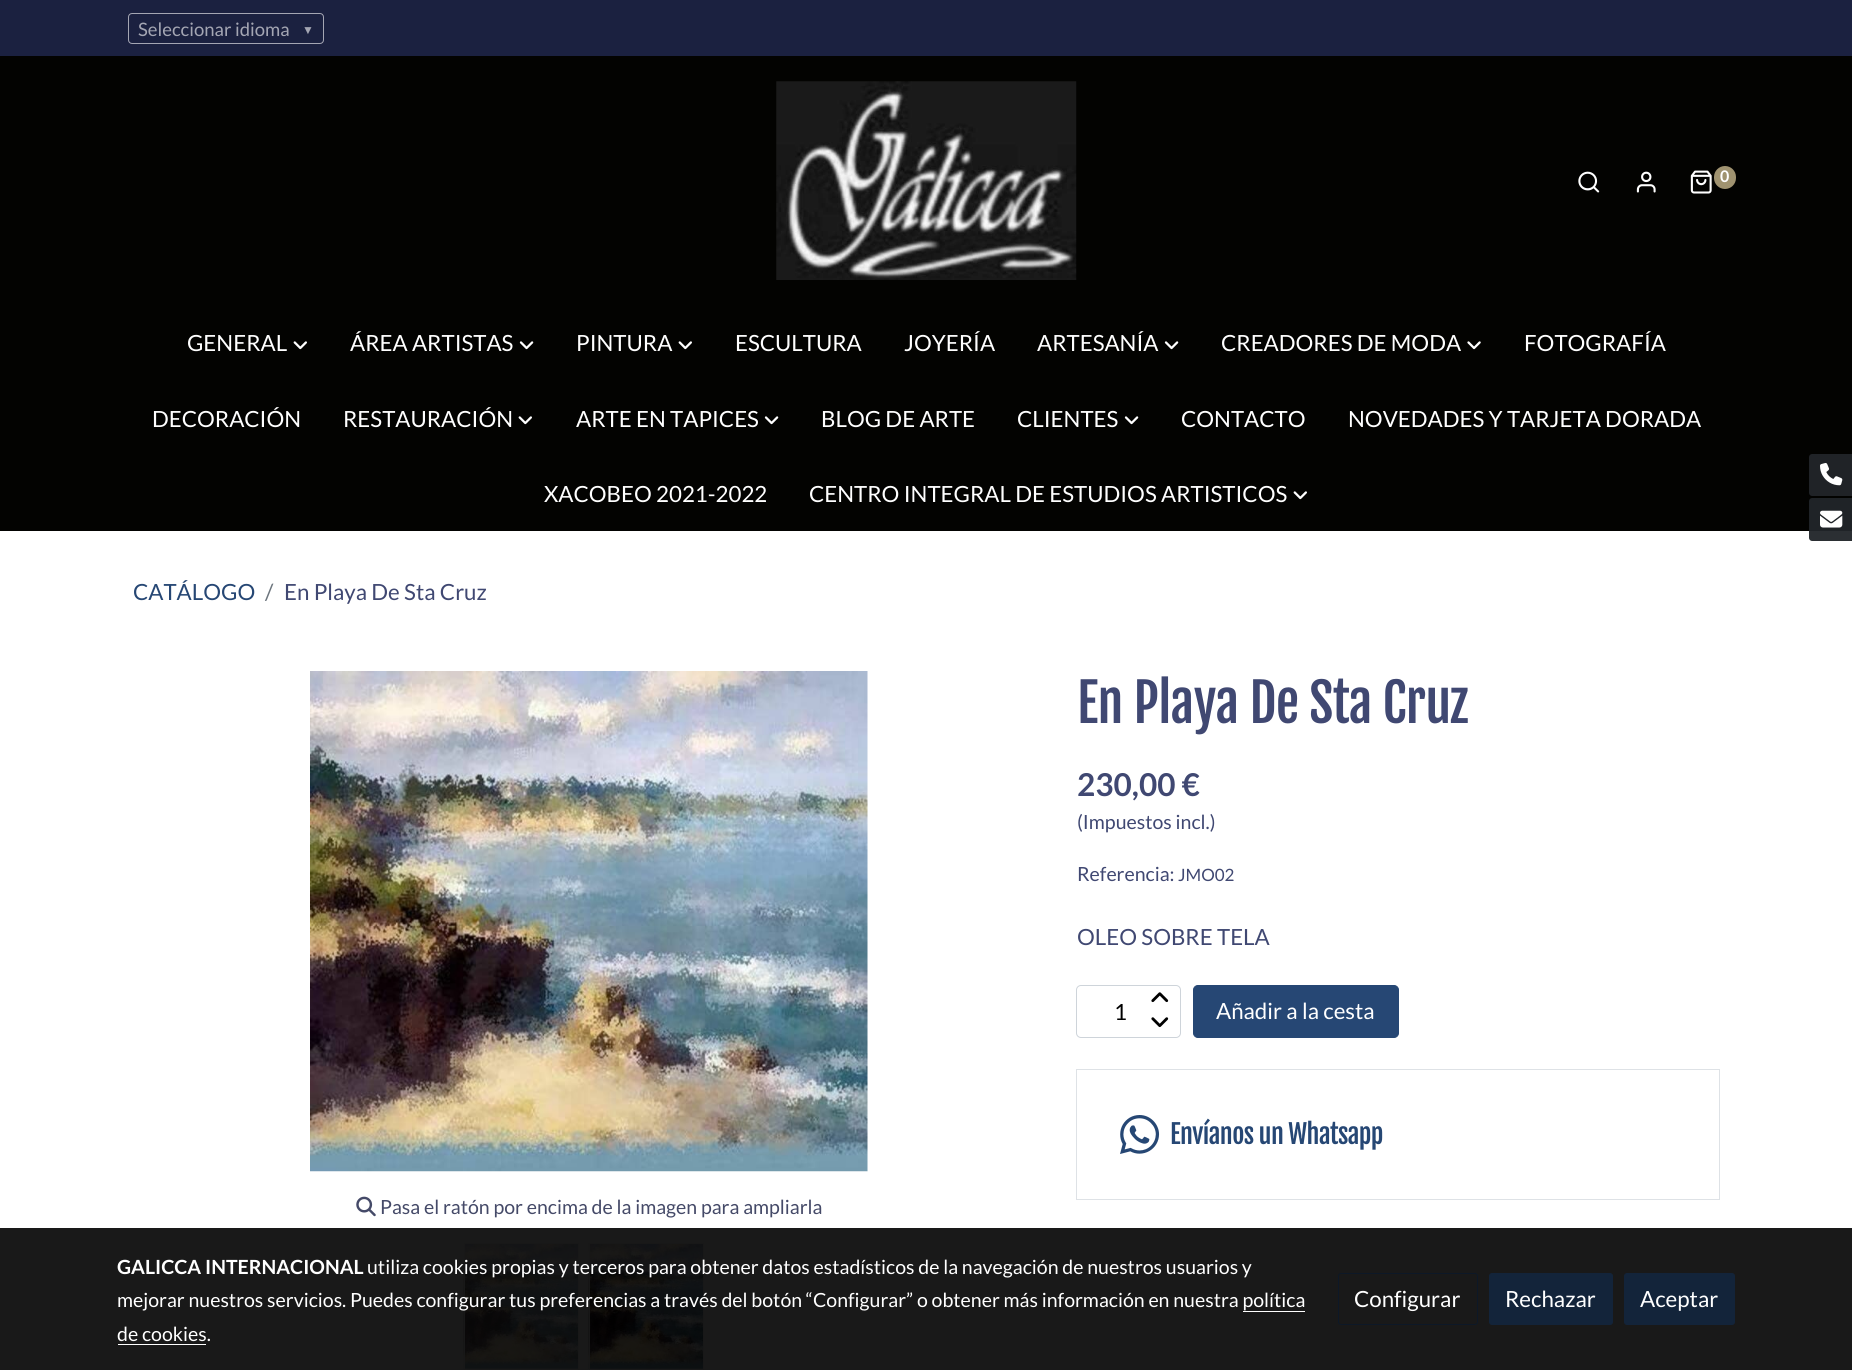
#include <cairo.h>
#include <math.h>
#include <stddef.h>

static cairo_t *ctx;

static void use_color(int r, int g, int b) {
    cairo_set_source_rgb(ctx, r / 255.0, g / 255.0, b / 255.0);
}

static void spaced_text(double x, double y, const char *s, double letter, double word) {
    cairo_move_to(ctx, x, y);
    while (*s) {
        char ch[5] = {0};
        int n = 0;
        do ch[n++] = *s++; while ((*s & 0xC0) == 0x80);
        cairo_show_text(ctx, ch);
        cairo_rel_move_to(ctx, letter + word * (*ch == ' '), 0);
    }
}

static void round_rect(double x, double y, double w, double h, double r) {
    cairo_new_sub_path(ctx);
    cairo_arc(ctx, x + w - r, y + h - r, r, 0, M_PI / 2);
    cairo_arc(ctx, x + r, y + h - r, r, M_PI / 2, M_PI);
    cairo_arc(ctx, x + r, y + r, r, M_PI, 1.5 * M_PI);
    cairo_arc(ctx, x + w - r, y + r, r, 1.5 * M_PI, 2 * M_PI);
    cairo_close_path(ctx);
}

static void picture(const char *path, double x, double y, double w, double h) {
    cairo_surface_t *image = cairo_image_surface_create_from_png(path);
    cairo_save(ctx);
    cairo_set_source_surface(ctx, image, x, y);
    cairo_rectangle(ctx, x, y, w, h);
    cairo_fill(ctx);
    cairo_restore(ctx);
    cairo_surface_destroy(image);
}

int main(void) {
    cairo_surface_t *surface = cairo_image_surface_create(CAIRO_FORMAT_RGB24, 1852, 1370);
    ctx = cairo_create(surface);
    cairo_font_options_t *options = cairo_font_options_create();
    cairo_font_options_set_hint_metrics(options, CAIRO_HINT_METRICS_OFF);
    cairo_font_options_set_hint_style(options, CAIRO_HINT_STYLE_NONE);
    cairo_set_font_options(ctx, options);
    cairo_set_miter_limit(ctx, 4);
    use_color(255, 255, 255);
    cairo_paint(ctx);
    use_color(25, 25, 25);
    cairo_rectangle(ctx, 0, 1228, 1852, 142);
    cairo_fill(ctx);
    use_color(27, 33, 64);
    cairo_rectangle(ctx, 0, 0, 1852, 56);
    cairo_fill(ctx);
    round_rect(128.5, 13.5, 195, 30, 3.5);
    use_color(164, 166, 179);
    cairo_set_line_width(ctx, 1);
    cairo_stroke(ctx);
    cairo_select_font_face(ctx, "Lato", CAIRO_FONT_SLANT_NORMAL, CAIRO_FONT_WEIGHT_NORMAL);
    cairo_set_font_size(ctx, 18.5);
    cairo_move_to(ctx, 138, 36);
    cairo_show_text(ctx, "Seleccionar idioma");
    cairo_select_font_face(ctx, "Liberation Sans", CAIRO_FONT_SLANT_NORMAL, CAIRO_FONT_WEIGHT_NORMAL);
    cairo_set_font_size(ctx, 12);
    cairo_move_to(ctx, 302, 34);
    cairo_show_text(ctx, "▼");
    use_color(3, 3, 1);
    cairo_rectangle(ctx, 0, 56, 1852, 475);
    cairo_fill(ctx);
    picture("img1.png", 776, 81, 301, 199);
    picture("img2.png", 1578, 171, 22, 22);
    picture("img3.png", 1636, 171, 20, 22);
    picture("img4.png", 1690, 170, 22, 24);
    use_color(160, 147, 112);
    round_rect(1714, 166, 22, 23, 11);
    cairo_fill(ctx);
    cairo_select_font_face(ctx, "Lato", CAIRO_FONT_SLANT_NORMAL, CAIRO_FONT_WEIGHT_BOLD);
    cairo_set_font_size(ctx, 16);
    use_color(255, 255, 255);
    cairo_move_to(ctx, 1720, 182);
    cairo_show_text(ctx, "0");
    cairo_select_font_face(ctx, "Lato", CAIRO_FONT_SLANT_NORMAL, CAIRO_FONT_WEIGHT_NORMAL);
    cairo_set_font_size(ctx, 22.3);
    cairo_move_to(ctx, 187, 351);
    cairo_show_text(ctx, "GENERAL");
    picture("img5.png", 293, 341, 14, 9);
    cairo_move_to(ctx, 350, 351);
    cairo_show_text(ctx, "ÁREA ARTISTAS");
    picture("img6.png", 519, 341, 15, 9);
    cairo_move_to(ctx, 576, 351);
    cairo_show_text(ctx, "PINTURA");
    picture("img5.png", 678, 341, 14, 9);
    cairo_move_to(ctx, 735, 351);
    cairo_show_text(ctx, "ESCULTURA");
    cairo_move_to(ctx, 904, 351);
    cairo_show_text(ctx, "JOYERÍA");
    cairo_move_to(ctx, 1037, 351);
    cairo_show_text(ctx, "ARTESANÍA");
    picture("img6.png", 1164, 341, 15, 9);
    cairo_move_to(ctx, 1221, 351);
    cairo_show_text(ctx, "CREADORES DE MODA");
    picture("img7.png", 1467, 341, 14, 9);
    cairo_move_to(ctx, 1524, 351);
    cairo_show_text(ctx, "FOTOGRAFÍA");
    cairo_move_to(ctx, 152, 427);
    cairo_show_text(ctx, "DECORACIÓN");
    cairo_move_to(ctx, 343, 427);
    cairo_show_text(ctx, "RESTAURACIÓN");
    picture("img5.png", 518, 416, 14, 9);
    cairo_move_to(ctx, 576, 427);
    cairo_show_text(ctx, "ARTE EN TAPICES");
    picture("img6.png", 764, 416, 15, 9);
    cairo_move_to(ctx, 821, 427);
    cairo_show_text(ctx, "BLOG DE ARTE");
    cairo_move_to(ctx, 1017, 427);
    cairo_show_text(ctx, "CLIENTES");
    picture("img6.png", 1124, 416, 15, 9);
    cairo_move_to(ctx, 1181, 427);
    cairo_show_text(ctx, "CONTACTO");
    cairo_move_to(ctx, 1348, 427);
    cairo_show_text(ctx, "NOVEDADES Y TARJETA DORADA");
    cairo_move_to(ctx, 544, 502);
    cairo_show_text(ctx, "XACOBEO 2021-2022");
    cairo_move_to(ctx, 809, 502);
    cairo_show_text(ctx, "CENTRO INTEGRAL DE ESTUDIOS ARTISTICOS");
    picture("img5.png", 1293, 491, 14, 9);
    use_color(38, 71, 116);
    cairo_move_to(ctx, 133, 600);
    cairo_show_text(ctx, "CATÁLOGO");
    use_color(108, 117, 125);
    cairo_move_to(ctx, 265, 600);
    cairo_show_text(ctx, "/");
    use_color(64, 72, 114);
    cairo_move_to(ctx, 284, 600);
    cairo_show_text(ctx, "En Playa De Sta Cruz");
    cairo_select_font_face(ctx, "Fjalla One", CAIRO_FONT_SLANT_NORMAL, CAIRO_FONT_WEIGHT_NORMAL);
    cairo_set_font_size(ctx, 52.5);
    spaced_text(1077, 723, "En Playa De Sta Cruz", -0.6, 0);
    cairo_select_font_face(ctx, "Lato", CAIRO_FONT_SLANT_NORMAL, CAIRO_FONT_WEIGHT_BOLD);
    cairo_set_font_size(ctx, 31.5);
    cairo_move_to(ctx, 1077, 796);
    cairo_show_text(ctx, "230,00 €");
    cairo_select_font_face(ctx, "Lato", CAIRO_FONT_SLANT_NORMAL, CAIRO_FONT_WEIGHT_NORMAL);
    cairo_set_font_size(ctx, 19.52);
    cairo_move_to(ctx, 1077, 829);
    cairo_show_text(ctx, "(Impuestos incl.)");
    cairo_move_to(ctx, 1077, 881);
    cairo_show_text(ctx, "Referencia:");
    cairo_set_font_size(ctx, 17);
    cairo_move_to(ctx, 1178, 881);
    cairo_show_text(ctx, "JMO02");
    cairo_set_font_size(ctx, 22.3);
    cairo_move_to(ctx, 1077, 945);
    cairo_show_text(ctx, "OLEO SOBRE TELA");
    round_rect(1076.5, 985.5, 104, 52, 4.5);
    use_color(206, 212, 218);
    cairo_stroke(ctx);
    use_color(0, 0, 0);
    cairo_move_to(ctx, 1114, 1020);
    cairo_show_text(ctx, "1");
    picture("img8.png", 1151, 992, 18, 11);
    picture("img9.png", 1151, 1017, 18, 11);
    use_color(38, 71, 116);
    round_rect(1193.5, 985.5, 205, 52, 4.5);
    cairo_fill_preserve(ctx);
    cairo_stroke(ctx);
    use_color(255, 255, 255);
    cairo_move_to(ctx, 1216, 1019);
    cairo_show_text(ctx, "Añadir a la cesta");
    cairo_rectangle(ctx, 1076.5, 1069.5, 643, 130);
    use_color(222, 226, 230);
    cairo_stroke(ctx);
    picture("img10.png", 1120, 1115, 40, 39);
    cairo_select_font_face(ctx, "Fjalla One", CAIRO_FONT_SLANT_NORMAL, CAIRO_FONT_WEIGHT_NORMAL);
    cairo_set_font_size(ctx, 26.25);
    use_color(38, 71, 116);
    spaced_text(1170, 1144, "Envíanos un Whatsapp", -0.6, 0);
    picture("img11.png", 310, 671, 558, 501);
    picture("img12.png", 356, 1196, 20, 21);
    cairo_select_font_face(ctx, "Lato", CAIRO_FONT_SLANT_NORMAL, CAIRO_FONT_WEIGHT_NORMAL);
    cairo_set_font_size(ctx, 19.52);
    use_color(69, 74, 104);
    cairo_move_to(ctx, 380, 1214);
    cairo_show_text(ctx, "Pasa el ratón por encima de la imagen para ampliarla");
    picture("img13.png", 463, 1243, 115, 126);
    cairo_rectangle(ctx, 464.5, 1243.5, 114, 126);
    use_color(24, 24, 24);
    cairo_stroke(ctx);
    picture("img14.png", 588, 1243, 115, 126);
    cairo_rectangle(ctx, 589.5, 1243.5, 114, 126);
    cairo_stroke(ctx);
    use_color(32, 35, 39);
    cairo_new_path(ctx);
    cairo_move_to(ctx, 1812, 454);
    cairo_line_to(ctx, 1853, 454);
    cairo_line_to(ctx, 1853, 496);
    cairo_line_to(ctx, 1812, 496);
    cairo_curve_to(ctx, 1810.5, 496, 1809, 494.5, 1809, 493);
    cairo_line_to(ctx, 1809, 457);
    cairo_curve_to(ctx, 1809, 455.5, 1810.5, 454, 1812, 454);
    cairo_close_path(ctx);
    cairo_fill(ctx);
    picture("img15.png", 1820, 463, 23, 23);
    cairo_set_source_rgba(ctx, 0.129, 0.145, 0.161, 0.95);
    cairo_new_path(ctx);
    cairo_move_to(ctx, 1812, 498);
    cairo_line_to(ctx, 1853, 498);
    cairo_line_to(ctx, 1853, 541);
    cairo_line_to(ctx, 1812, 541);
    cairo_curve_to(ctx, 1810.5, 541, 1809, 539.5, 1809, 538);
    cairo_line_to(ctx, 1809, 501);
    cairo_curve_to(ctx, 1809, 499.5, 1810.5, 498, 1812, 498);
    cairo_close_path(ctx);
    cairo_fill(ctx);
    picture("img16.png", 1820, 510, 23, 18);
    cairo_select_font_face(ctx, "Lato", CAIRO_FONT_SLANT_NORMAL, CAIRO_FONT_WEIGHT_BOLD);
    use_color(255, 255, 255);
    cairo_move_to(ctx, 117, 1274);
    cairo_show_text(ctx, "GALICCA INTERNACIONAL");
    cairo_select_font_face(ctx, "Lato", CAIRO_FONT_SLANT_NORMAL, CAIRO_FONT_WEIGHT_NORMAL);
    cairo_move_to(ctx, 367, 1274);
    cairo_show_text(ctx, "utiliza cookies propias y terceros para obtener datos estadísticos de la navegación de nuestros usuarios y");
    cairo_move_to(ctx, 117, 1307);
    cairo_show_text(ctx, "mejorar nuestros servicios. Puedes configurar tus preferencias a través del botón “Configurar” o obtener más información en nuestra política");
    cairo_rectangle(ctx, 1243, 1311, 62, 1);
    cairo_fill(ctx);
    cairo_move_to(ctx, 117, 1341);
    cairo_show_text(ctx, "de cookies.");
    cairo_rectangle(ctx, 118, 1344, 88, 1);
    cairo_fill(ctx);
    round_rect(1338.5, 1273.5, 139, 51, 2.5);
    use_color(13, 24, 39);
    cairo_stroke(ctx);
    cairo_set_font_size(ctx, 22.3);
    use_color(255, 255, 255);
    cairo_move_to(ctx, 1354, 1307);
    cairo_show_text(ctx, "Configurar");
    use_color(19, 36, 58);
    round_rect(1489.5, 1273.5, 123, 51, 2.5);
    cairo_fill_preserve(ctx);
    cairo_stroke(ctx);
    use_color(255, 255, 255);
    cairo_move_to(ctx, 1505, 1307);
    cairo_show_text(ctx, "Rechazar");
    use_color(19, 36, 58);
    round_rect(1624.5, 1273.5, 110, 51, 2.5);
    cairo_fill_preserve(ctx);
    cairo_stroke(ctx);
    use_color(255, 255, 255);
    cairo_move_to(ctx, 1640, 1307);
    cairo_show_text(ctx, "Aceptar");
    cairo_surface_write_to_png(surface, "result.png");
    cairo_font_options_destroy(options);
    cairo_destroy(ctx);
    cairo_surface_destroy(surface);
    return 0;
}
